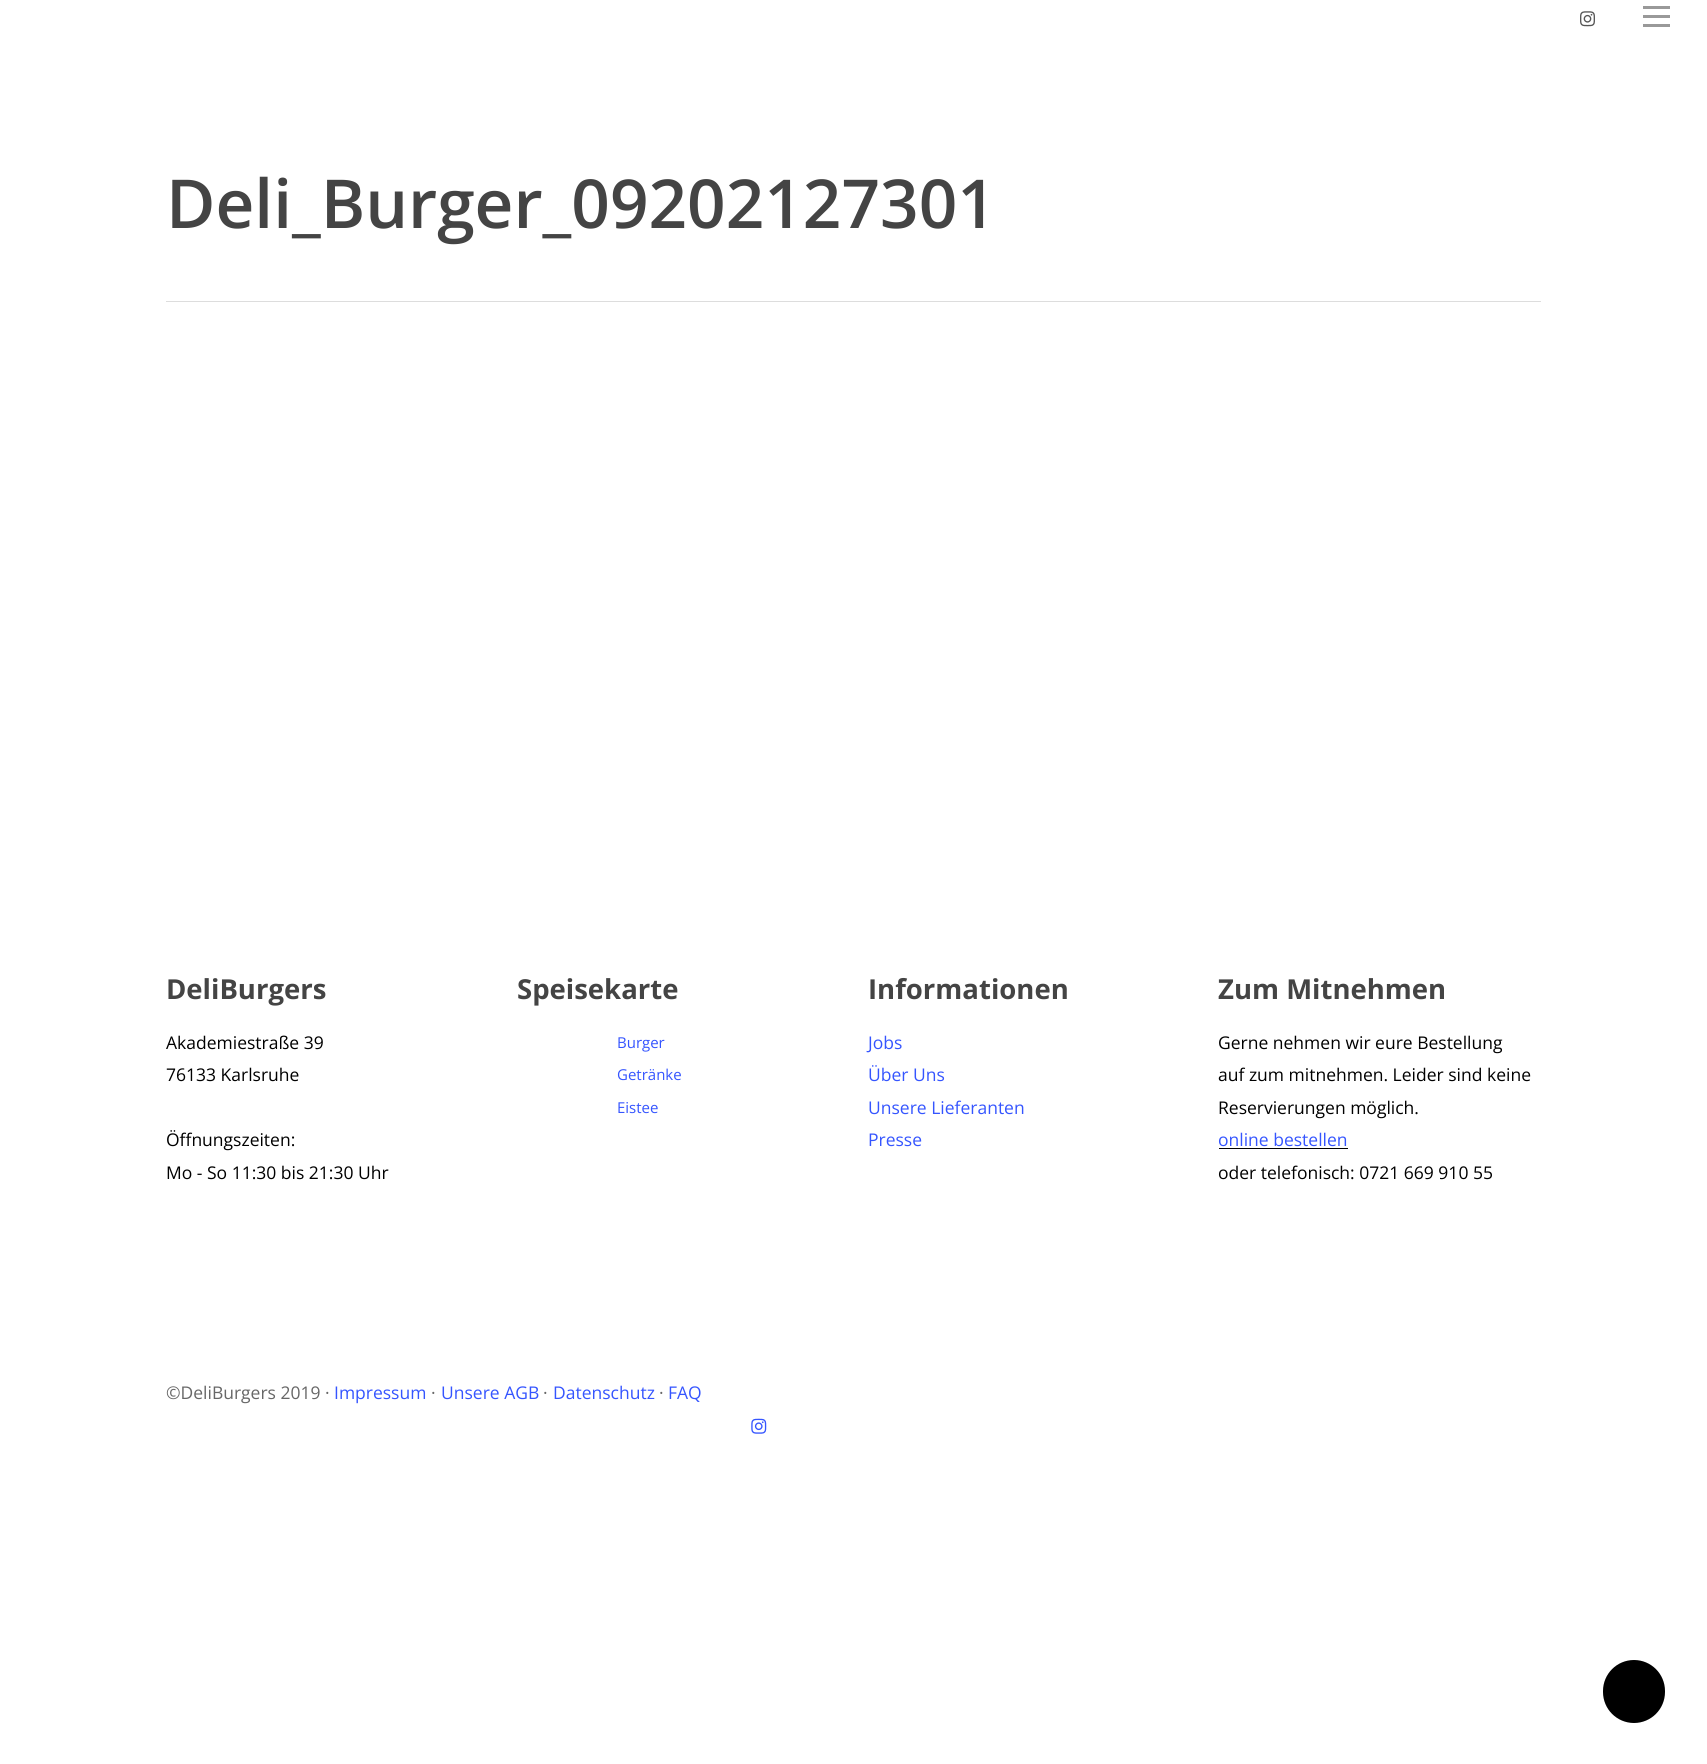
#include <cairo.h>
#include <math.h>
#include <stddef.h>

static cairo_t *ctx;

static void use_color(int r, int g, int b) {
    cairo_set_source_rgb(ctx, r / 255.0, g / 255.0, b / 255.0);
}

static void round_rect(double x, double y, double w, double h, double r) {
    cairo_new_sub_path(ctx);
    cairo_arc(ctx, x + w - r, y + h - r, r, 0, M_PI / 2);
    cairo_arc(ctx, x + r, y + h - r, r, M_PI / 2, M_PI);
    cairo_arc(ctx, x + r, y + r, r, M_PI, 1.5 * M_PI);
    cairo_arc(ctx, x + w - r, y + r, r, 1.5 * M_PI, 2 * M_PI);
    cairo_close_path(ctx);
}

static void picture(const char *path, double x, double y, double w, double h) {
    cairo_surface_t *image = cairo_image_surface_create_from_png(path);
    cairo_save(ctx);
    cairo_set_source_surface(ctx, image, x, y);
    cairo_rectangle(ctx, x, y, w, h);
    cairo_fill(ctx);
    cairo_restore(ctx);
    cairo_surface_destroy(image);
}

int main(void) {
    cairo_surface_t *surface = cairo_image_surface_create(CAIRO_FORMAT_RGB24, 1707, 1764);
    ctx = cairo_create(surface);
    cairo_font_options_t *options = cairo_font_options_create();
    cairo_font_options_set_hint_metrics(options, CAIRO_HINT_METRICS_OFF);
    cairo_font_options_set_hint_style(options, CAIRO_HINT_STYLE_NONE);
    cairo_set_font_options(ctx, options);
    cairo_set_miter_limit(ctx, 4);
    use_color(255, 255, 255);
    cairo_paint(ctx);
    picture("img1.png", 1580, 11, 15, 16);
    use_color(153, 153, 153);
    cairo_rectangle(ctx, 1643, 6, 27, 3);
    cairo_fill(ctx);
    cairo_rectangle(ctx, 1643, 24, 27, 3);
    cairo_fill(ctx);
    cairo_rectangle(ctx, 1643, 15, 27, 3);
    cairo_fill(ctx);
    use_color(221, 221, 221);
    cairo_rectangle(ctx, 166, 301, 1375, 1);
    cairo_fill(ctx);
    cairo_select_font_face(ctx, "Open Sans SemiBold", CAIRO_FONT_SLANT_NORMAL, CAIRO_FONT_WEIGHT_NORMAL);
    cairo_set_font_size(ctx, 67.5);
    use_color(68, 68, 68);
    cairo_move_to(ctx, 166, 228);
    cairo_show_text(ctx, "Deli_Burger_09202127301");
    cairo_select_font_face(ctx, "Open Sans", CAIRO_FONT_SLANT_NORMAL, CAIRO_FONT_WEIGHT_BOLD);
    cairo_set_font_size(ctx, 27.5);
    cairo_move_to(ctx, 166, 999);
    cairo_show_text(ctx, "DeliBurgers");
    cairo_select_font_face(ctx, "Open Sans", CAIRO_FONT_SLANT_NORMAL, CAIRO_FONT_WEIGHT_NORMAL);
    cairo_set_font_size(ctx, 17.5);
    use_color(0, 0, 0);
    cairo_move_to(ctx, 166, 1049);
    cairo_show_text(ctx, "Akademiestraße 39");
    cairo_move_to(ctx, 166, 1081);
    cairo_show_text(ctx, "76133 Karlsruhe");
    cairo_move_to(ctx, 166, 1146);
    cairo_show_text(ctx, "Öffnungszeiten:");
    cairo_move_to(ctx, 166, 1179);
    cairo_show_text(ctx, "Mo - So 11:30 bis 21:30 Uhr");
    cairo_select_font_face(ctx, "Open Sans", CAIRO_FONT_SLANT_NORMAL, CAIRO_FONT_WEIGHT_BOLD);
    cairo_set_font_size(ctx, 27.5);
    use_color(68, 68, 68);
    cairo_move_to(ctx, 517, 999);
    cairo_show_text(ctx, "Speisekarte");
    cairo_select_font_face(ctx, "Open Sans", CAIRO_FONT_SLANT_NORMAL, CAIRO_FONT_WEIGHT_NORMAL);
    cairo_set_font_size(ctx, 15);
    use_color(53, 85, 255);
    cairo_move_to(ctx, 617, 1048);
    cairo_show_text(ctx, "Burger");
    cairo_move_to(ctx, 617, 1080);
    cairo_show_text(ctx, "Getränke");
    cairo_move_to(ctx, 617, 1113);
    cairo_show_text(ctx, "Eistee");
    cairo_select_font_face(ctx, "Open Sans", CAIRO_FONT_SLANT_NORMAL, CAIRO_FONT_WEIGHT_BOLD);
    cairo_set_font_size(ctx, 27.5);
    use_color(68, 68, 68);
    cairo_move_to(ctx, 868, 999);
    cairo_show_text(ctx, "Informationen");
    cairo_select_font_face(ctx, "Open Sans", CAIRO_FONT_SLANT_NORMAL, CAIRO_FONT_WEIGHT_NORMAL);
    cairo_set_font_size(ctx, 17.5);
    use_color(53, 85, 255);
    cairo_move_to(ctx, 868, 1049);
    cairo_show_text(ctx, "Jobs");
    cairo_move_to(ctx, 868, 1081);
    cairo_show_text(ctx, "Über Uns");
    cairo_move_to(ctx, 868, 1114);
    cairo_show_text(ctx, "Unsere Lieferanten");
    cairo_move_to(ctx, 868, 1146);
    cairo_show_text(ctx, "Presse");
    cairo_select_font_face(ctx, "Open Sans", CAIRO_FONT_SLANT_NORMAL, CAIRO_FONT_WEIGHT_BOLD);
    cairo_set_font_size(ctx, 27.5);
    use_color(68, 68, 68);
    cairo_move_to(ctx, 1218, 999);
    cairo_show_text(ctx, "Zum Mitnehmen");
    cairo_select_font_face(ctx, "Open Sans", CAIRO_FONT_SLANT_NORMAL, CAIRO_FONT_WEIGHT_NORMAL);
    cairo_set_font_size(ctx, 17.5);
    use_color(0, 0, 0);
    cairo_move_to(ctx, 1218, 1049);
    cairo_show_text(ctx, "Gerne nehmen wir eure Bestellung");
    cairo_move_to(ctx, 1218, 1081);
    cairo_show_text(ctx, "auf zum mitnehmen. Leider sind keine");
    cairo_move_to(ctx, 1218, 1114);
    cairo_show_text(ctx, "Reservierungen möglich.");
    use_color(53, 85, 255);
    cairo_move_to(ctx, 1218, 1146);
    cairo_show_text(ctx, "online bestellen");
    use_color(0, 0, 0);
    cairo_rectangle(ctx, 1219, 1148, 129, 1);
    cairo_fill(ctx);
    cairo_move_to(ctx, 1218, 1179);
    cairo_show_text(ctx, "oder telefonisch: 0721 669 910 55");
    use_color(103, 103, 103);
    cairo_move_to(ctx, 166, 1399);
    cairo_show_text(ctx, "©DeliBurgers 2019 ·");
    use_color(53, 85, 255);
    cairo_move_to(ctx, 334, 1399);
    cairo_show_text(ctx, "Impressum");
    use_color(103, 103, 103);
    cairo_move_to(ctx, 431, 1399);
    cairo_show_text(ctx, "·");
    use_color(53, 85, 255);
    cairo_move_to(ctx, 441, 1399);
    cairo_show_text(ctx, "Unsere AGB");
    use_color(103, 103, 103);
    cairo_move_to(ctx, 543, 1399);
    cairo_show_text(ctx, "·");
    use_color(53, 85, 255);
    cairo_move_to(ctx, 553, 1399);
    cairo_show_text(ctx, "Datenschutz");
    use_color(103, 103, 103);
    cairo_move_to(ctx, 659, 1399);
    cairo_show_text(ctx, "·");
    use_color(53, 85, 255);
    cairo_move_to(ctx, 668, 1399);
    cairo_show_text(ctx, "FAQ");
    picture("img2.png", 751, 1418, 16, 16);
    use_color(0, 0, 0);
    round_rect(1603, 1660, 62, 63, 31);
    cairo_fill(ctx);
    cairo_surface_write_to_png(surface, "result.png");
    cairo_font_options_destroy(options);
    cairo_destroy(ctx);
    cairo_surface_destroy(surface);
    return 0;
}
